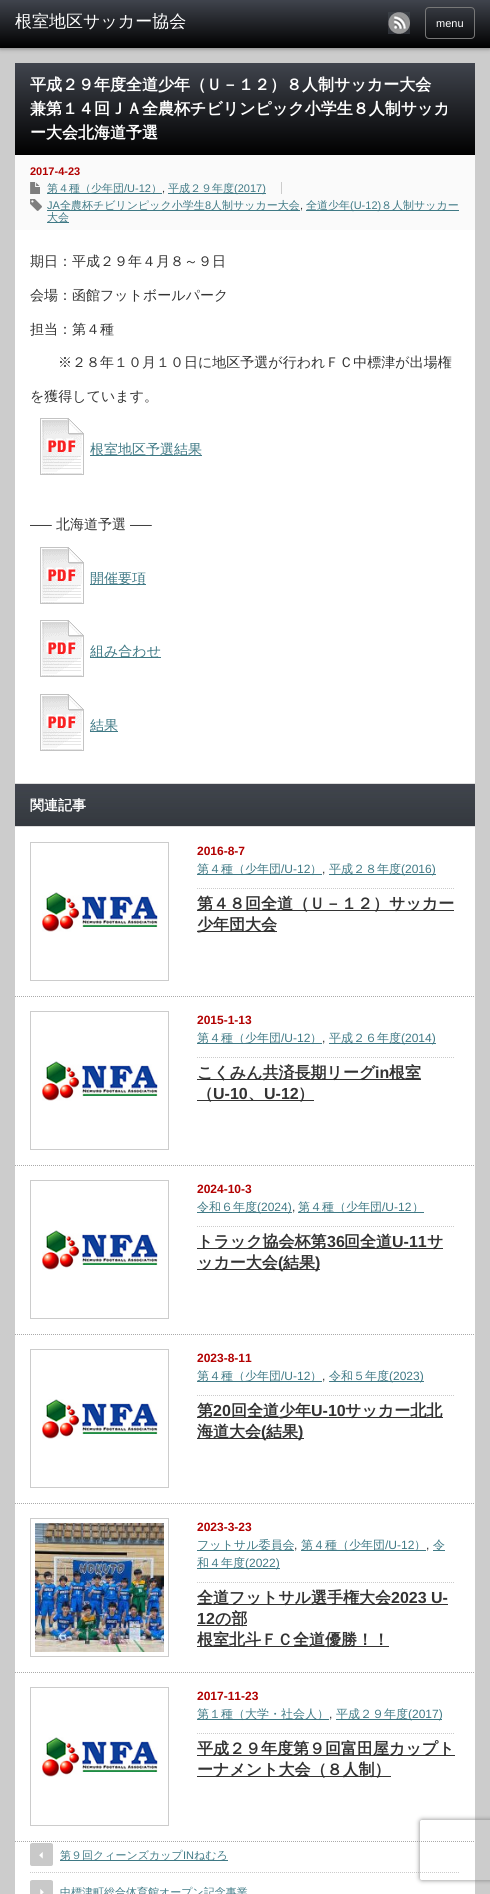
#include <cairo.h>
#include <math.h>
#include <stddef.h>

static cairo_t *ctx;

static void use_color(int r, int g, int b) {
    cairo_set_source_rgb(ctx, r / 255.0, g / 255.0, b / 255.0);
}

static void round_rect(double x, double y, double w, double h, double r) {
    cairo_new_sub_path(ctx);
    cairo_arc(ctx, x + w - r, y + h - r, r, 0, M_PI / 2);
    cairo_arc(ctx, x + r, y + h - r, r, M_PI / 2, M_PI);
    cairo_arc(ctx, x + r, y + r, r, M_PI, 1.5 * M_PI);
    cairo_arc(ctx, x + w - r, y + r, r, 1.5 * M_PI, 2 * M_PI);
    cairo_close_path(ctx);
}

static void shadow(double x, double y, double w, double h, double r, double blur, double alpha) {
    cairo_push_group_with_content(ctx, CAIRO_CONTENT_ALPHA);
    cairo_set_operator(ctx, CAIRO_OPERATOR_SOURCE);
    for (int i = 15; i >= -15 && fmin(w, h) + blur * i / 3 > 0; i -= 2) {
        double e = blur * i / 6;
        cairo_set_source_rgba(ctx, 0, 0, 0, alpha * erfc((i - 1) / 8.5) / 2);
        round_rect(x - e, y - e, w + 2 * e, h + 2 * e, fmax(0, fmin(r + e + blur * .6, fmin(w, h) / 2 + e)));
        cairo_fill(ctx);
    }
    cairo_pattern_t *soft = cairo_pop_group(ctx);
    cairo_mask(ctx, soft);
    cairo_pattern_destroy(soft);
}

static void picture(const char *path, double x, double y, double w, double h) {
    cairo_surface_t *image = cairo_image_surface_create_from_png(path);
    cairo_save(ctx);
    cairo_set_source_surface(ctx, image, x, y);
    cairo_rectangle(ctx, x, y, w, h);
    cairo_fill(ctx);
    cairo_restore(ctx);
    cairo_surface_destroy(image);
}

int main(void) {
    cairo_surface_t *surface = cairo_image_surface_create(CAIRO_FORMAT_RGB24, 490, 1894);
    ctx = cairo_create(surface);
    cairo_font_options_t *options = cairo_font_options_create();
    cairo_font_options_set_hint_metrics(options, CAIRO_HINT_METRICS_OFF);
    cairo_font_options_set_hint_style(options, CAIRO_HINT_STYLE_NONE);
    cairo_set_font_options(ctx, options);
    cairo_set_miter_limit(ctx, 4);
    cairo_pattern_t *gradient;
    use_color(204, 204, 204);
    cairo_paint(ctx);
    use_color(0, 0, 0);
    shadow(0, 0, 490, 48, 0, 2.5, 0.5);
    gradient = cairo_pattern_create_linear(245, 0, 245, 48);
    cairo_pattern_add_color_stop_rgba(gradient, 0, 0.251, 0.267, 0.302, 1);
    cairo_pattern_add_color_stop_rgba(gradient, 1, 0, 0, 0, 1);
    cairo_set_source(ctx, gradient);
    cairo_pattern_destroy(gradient);
    cairo_rectangle(ctx, 0, 0, 490, 48);
    cairo_fill(ctx);
    cairo_select_font_face(ctx, "WenQuanYi Zen Hei Medium", CAIRO_FONT_SLANT_NORMAL, CAIRO_FONT_WEIGHT_NORMAL);
    cairo_set_font_size(ctx, 17);
    use_color(255, 255, 255);
    cairo_move_to(ctx, 15, 27);
    cairo_show_text(ctx, "根室地区サッカー協会");
    picture("img1.png", 388, 12, 22, 22);
    round_rect(425.5, 7.5, 49, 31, 3.5);
    use_color(119, 119, 119);
    cairo_set_line_width(ctx, 1);
    cairo_stroke(ctx);
    cairo_select_font_face(ctx, "Liberation Sans", CAIRO_FONT_SLANT_NORMAL, CAIRO_FONT_WEIGHT_NORMAL);
    cairo_set_font_size(ctx, 11);
    use_color(255, 255, 255);
    cairo_move_to(ctx, 436, 27);
    cairo_show_text(ctx, "menu");
    gradient = cairo_pattern_create_linear(15, 63, 15, 155);
    cairo_pattern_add_color_stop_rgba(gradient, 0, 0.251, 0.267, 0.302, 1);
    cairo_pattern_add_color_stop_rgba(gradient, 1, 0, 0, 0, 1);
    cairo_set_source(ctx, gradient);
    cairo_pattern_destroy(gradient);
    cairo_rectangle(ctx, 15, 63, 460, 92);
    cairo_fill(ctx);
    cairo_select_font_face(ctx, "WenQuanYi Zen Hei", CAIRO_FONT_SLANT_NORMAL, CAIRO_FONT_WEIGHT_BOLD);
    cairo_set_font_size(ctx, 16);
    use_color(255, 255, 255);
    cairo_move_to(ctx, 30, 90);
    cairo_show_text(ctx, "平成２９年度全道少年（Ｕ－１２）８人制サッカー大会");
    cairo_move_to(ctx, 30, 114);
    cairo_show_text(ctx, "兼第１４回ＪＡ全農杯チビリンピック小学生８人制サッカ");
    cairo_move_to(ctx, 30, 138);
    cairo_show_text(ctx, "ー大会北海道予選");
    cairo_rectangle(ctx, 15, 230, 460, 1664);
    cairo_fill(ctx);
    use_color(250, 250, 250);
    cairo_rectangle(ctx, 15, 155, 460, 75);
    cairo_fill(ctx);
    cairo_select_font_face(ctx, "Liberation Sans", CAIRO_FONT_SLANT_NORMAL, CAIRO_FONT_WEIGHT_BOLD);
    cairo_set_font_size(ctx, 11);
    use_color(178, 0, 0);
    cairo_move_to(ctx, 30, 175);
    cairo_show_text(ctx, "2017-4-23");
    picture("img2.png", 30, 182, 10, 12);
    use_color(204, 204, 204);
    cairo_rectangle(ctx, 281, 182, 1, 12);
    cairo_fill(ctx);
    use_color(63, 121, 133);
    cairo_rectangle(ctx, 47, 193, 115, 1);
    cairo_fill(ctx);
    cairo_select_font_face(ctx, "WenQuanYi Zen Hei Medium", CAIRO_FONT_SLANT_NORMAL, CAIRO_FONT_WEIGHT_NORMAL);
    cairo_move_to(ctx, 47, 192);
    cairo_show_text(ctx, "第４種（少年団");
    cairo_select_font_face(ctx, "Liberation Sans", CAIRO_FONT_SLANT_NORMAL, CAIRO_FONT_WEIGHT_NORMAL);
    cairo_move_to(ctx, 124, 192);
    cairo_show_text(ctx, "/U-12");
    cairo_select_font_face(ctx, "WenQuanYi Zen Hei Medium", CAIRO_FONT_SLANT_NORMAL, CAIRO_FONT_WEIGHT_NORMAL);
    cairo_move_to(ctx, 151, 192);
    cairo_show_text(ctx, "）");
    cairo_select_font_face(ctx, "Liberation Sans", CAIRO_FONT_SLANT_NORMAL, CAIRO_FONT_WEIGHT_NORMAL);
    use_color(51, 51, 51);
    cairo_move_to(ctx, 162, 192);
    cairo_show_text(ctx, ",");
    use_color(63, 121, 133);
    cairo_rectangle(ctx, 168, 193, 98, 1);
    cairo_fill(ctx);
    cairo_select_font_face(ctx, "WenQuanYi Zen Hei Medium", CAIRO_FONT_SLANT_NORMAL, CAIRO_FONT_WEIGHT_NORMAL);
    cairo_move_to(ctx, 168, 192);
    cairo_show_text(ctx, "平成２９年度");
    cairo_select_font_face(ctx, "Liberation Sans", CAIRO_FONT_SLANT_NORMAL, CAIRO_FONT_WEIGHT_NORMAL);
    cairo_move_to(ctx, 234, 192);
    cairo_show_text(ctx, "(2017)");
    picture("img3.png", 30, 199, 12, 12);
    cairo_move_to(ctx, 47, 209);
    cairo_show_text(ctx, "JA");
    cairo_rectangle(ctx, 47, 210, 253, 1);
    cairo_fill(ctx);
    cairo_select_font_face(ctx, "WenQuanYi Zen Hei Medium", CAIRO_FONT_SLANT_NORMAL, CAIRO_FONT_WEIGHT_NORMAL);
    cairo_move_to(ctx, 60, 209);
    cairo_show_text(ctx, "全農杯チビリンピック小学生");
    cairo_select_font_face(ctx, "Liberation Sans", CAIRO_FONT_SLANT_NORMAL, CAIRO_FONT_WEIGHT_NORMAL);
    cairo_move_to(ctx, 205, 209);
    cairo_show_text(ctx, "8");
    cairo_select_font_face(ctx, "WenQuanYi Zen Hei Medium", CAIRO_FONT_SLANT_NORMAL, CAIRO_FONT_WEIGHT_NORMAL);
    cairo_move_to(ctx, 211, 209);
    cairo_show_text(ctx, "人制サッカー大会");
    cairo_select_font_face(ctx, "Liberation Sans", CAIRO_FONT_SLANT_NORMAL, CAIRO_FONT_WEIGHT_NORMAL);
    use_color(51, 51, 51);
    cairo_move_to(ctx, 300, 209);
    cairo_show_text(ctx, ",");
    use_color(63, 121, 133);
    cairo_rectangle(ctx, 306, 210, 153, 1);
    cairo_fill(ctx);
    cairo_select_font_face(ctx, "WenQuanYi Zen Hei Medium", CAIRO_FONT_SLANT_NORMAL, CAIRO_FONT_WEIGHT_NORMAL);
    cairo_move_to(ctx, 306, 209);
    cairo_show_text(ctx, "全道少年");
    cairo_select_font_face(ctx, "Liberation Sans", CAIRO_FONT_SLANT_NORMAL, CAIRO_FONT_WEIGHT_NORMAL);
    cairo_move_to(ctx, 350, 209);
    cairo_show_text(ctx, "(U-12)");
    cairo_select_font_face(ctx, "WenQuanYi Zen Hei Medium", CAIRO_FONT_SLANT_NORMAL, CAIRO_FONT_WEIGHT_NORMAL);
    cairo_move_to(ctx, 381, 209);
    cairo_show_text(ctx, "８人制サッカー");
    cairo_rectangle(ctx, 47, 222, 22, 1);
    cairo_fill(ctx);
    cairo_move_to(ctx, 47, 221);
    cairo_show_text(ctx, "大会");
    cairo_set_font_size(ctx, 14);
    use_color(51, 51, 51);
    cairo_move_to(ctx, 30, 266);
    cairo_show_text(ctx, "期日：平成２９年４月８～９日");
    cairo_move_to(ctx, 30, 300);
    cairo_show_text(ctx, "会場：函館フットボールパーク");
    cairo_move_to(ctx, 30, 334);
    cairo_show_text(ctx, "担当：第４種");
    cairo_move_to(ctx, 58, 367);
    cairo_show_text(ctx, "※２８年１０月１０日に地区予選が行われＦＣ中標津が出場権");
    cairo_move_to(ctx, 30, 401);
    cairo_show_text(ctx, "を獲得しています。");
    picture("img4.png", 40, 418, 44, 57);
    use_color(63, 121, 133);
    cairo_rectangle(ctx, 90, 455, 112, 1);
    cairo_fill(ctx);
    cairo_move_to(ctx, 90, 454);
    cairo_show_text(ctx, "根室地区予選結果");
    cairo_select_font_face(ctx, "Liberation Sans", CAIRO_FONT_SLANT_NORMAL, CAIRO_FONT_WEIGHT_NORMAL);
    use_color(51, 51, 51);
    cairo_move_to(ctx, 30, 529);
    cairo_show_text(ctx, "—–");
    cairo_select_font_face(ctx, "WenQuanYi Zen Hei Medium", CAIRO_FONT_SLANT_NORMAL, CAIRO_FONT_WEIGHT_NORMAL);
    cairo_move_to(ctx, 56, 529);
    cairo_show_text(ctx, "北海道予選");
    cairo_select_font_face(ctx, "Liberation Sans", CAIRO_FONT_SLANT_NORMAL, CAIRO_FONT_WEIGHT_NORMAL);
    cairo_move_to(ctx, 130, 529);
    cairo_show_text(ctx, "—–");
    picture("img4.png", 40, 547, 44, 57);
    use_color(63, 121, 133);
    cairo_rectangle(ctx, 90, 584, 56, 1);
    cairo_fill(ctx);
    cairo_select_font_face(ctx, "WenQuanYi Zen Hei Medium", CAIRO_FONT_SLANT_NORMAL, CAIRO_FONT_WEIGHT_NORMAL);
    cairo_move_to(ctx, 90, 583);
    cairo_show_text(ctx, "開催要項");
    picture("img4.png", 40, 620, 44, 57);
    cairo_rectangle(ctx, 90, 657, 71, 1);
    cairo_fill(ctx);
    cairo_move_to(ctx, 90, 656);
    cairo_show_text(ctx, "組み合わせ");
    picture("img4.png", 40, 694, 44, 57);
    cairo_rectangle(ctx, 90, 731, 28, 1);
    cairo_fill(ctx);
    cairo_move_to(ctx, 90, 730);
    cairo_show_text(ctx, "結果");
    picture("img5.png", 15, 784, 460, 42);
    use_color(221, 221, 221);
    cairo_rectangle(ctx, 15, 783, 460, 1);
    cairo_fill(ctx);
    cairo_rectangle(ctx, 15, 826, 460, 1);
    cairo_fill(ctx);
    cairo_select_font_face(ctx, "WenQuanYi Zen Hei", CAIRO_FONT_SLANT_NORMAL, CAIRO_FONT_WEIGHT_BOLD);
    use_color(255, 255, 255);
    cairo_move_to(ctx, 30, 810);
    cairo_show_text(ctx, "関連記事");
    cairo_new_path(ctx);
    cairo_move_to(ctx, 15, 996.5);
    cairo_line_to(ctx, 475, 996.5);
    use_color(170, 170, 170);
    cairo_set_dash(ctx, (double[]){1, 1}, 2, 0);
    cairo_stroke(ctx);
    cairo_rectangle(ctx, 30.5, 842.5, 138, 138);
    use_color(204, 204, 204);
    cairo_set_dash(ctx, NULL, 0, 0);
    cairo_stroke(ctx);
    picture("img6.png", 42, 892, 116, 40);
    cairo_new_path(ctx);
    cairo_move_to(ctx, 197, 888.5);
    cairo_line_to(ctx, 455, 888.5);
    cairo_set_dash(ctx, (double[]){1, 1}, 2, 0);
    cairo_stroke(ctx);
    cairo_select_font_face(ctx, "Liberation Sans", CAIRO_FONT_SLANT_NORMAL, CAIRO_FONT_WEIGHT_BOLD);
    cairo_set_font_size(ctx, 12);
    use_color(178, 0, 0);
    cairo_move_to(ctx, 197, 855);
    cairo_show_text(ctx, "2016-8-7");
    use_color(63, 121, 133);
    cairo_rectangle(ctx, 197, 874, 125, 1);
    cairo_fill(ctx);
    cairo_select_font_face(ctx, "WenQuanYi Zen Hei Medium", CAIRO_FONT_SLANT_NORMAL, CAIRO_FONT_WEIGHT_NORMAL);
    cairo_move_to(ctx, 197, 873);
    cairo_show_text(ctx, "第４種（少年団");
    cairo_select_font_face(ctx, "Liberation Sans", CAIRO_FONT_SLANT_NORMAL, CAIRO_FONT_WEIGHT_NORMAL);
    cairo_move_to(ctx, 281, 873);
    cairo_show_text(ctx, "/U-12");
    cairo_select_font_face(ctx, "WenQuanYi Zen Hei Medium", CAIRO_FONT_SLANT_NORMAL, CAIRO_FONT_WEIGHT_NORMAL);
    cairo_move_to(ctx, 310, 873);
    cairo_show_text(ctx, "）");
    cairo_select_font_face(ctx, "Liberation Sans", CAIRO_FONT_SLANT_NORMAL, CAIRO_FONT_WEIGHT_NORMAL);
    use_color(51, 51, 51);
    cairo_move_to(ctx, 322, 873);
    cairo_show_text(ctx, ",");
    use_color(63, 121, 133);
    cairo_rectangle(ctx, 329, 874, 107, 1);
    cairo_fill(ctx);
    cairo_select_font_face(ctx, "WenQuanYi Zen Hei Medium", CAIRO_FONT_SLANT_NORMAL, CAIRO_FONT_WEIGHT_NORMAL);
    cairo_move_to(ctx, 329, 873);
    cairo_show_text(ctx, "平成２８年度");
    cairo_select_font_face(ctx, "Liberation Sans", CAIRO_FONT_SLANT_NORMAL, CAIRO_FONT_WEIGHT_NORMAL);
    cairo_move_to(ctx, 401, 873);
    cairo_show_text(ctx, "(2016)");
    use_color(51, 51, 51);
    cairo_rectangle(ctx, 197, 910, 257, 1);
    cairo_fill(ctx);
    cairo_select_font_face(ctx, "WenQuanYi Zen Hei", CAIRO_FONT_SLANT_NORMAL, CAIRO_FONT_WEIGHT_BOLD);
    cairo_set_font_size(ctx, 16);
    cairo_move_to(ctx, 197, 909);
    cairo_show_text(ctx, "第４８回全道（Ｕ－１２）サッカー");
    cairo_rectangle(ctx, 197, 931, 80, 1);
    cairo_fill(ctx);
    cairo_move_to(ctx, 197, 930);
    cairo_show_text(ctx, "少年団大会");
    cairo_new_path(ctx);
    cairo_move_to(ctx, 15, 1165.5);
    cairo_line_to(ctx, 475, 1165.5);
    use_color(170, 170, 170);
    cairo_stroke(ctx);
    cairo_rectangle(ctx, 30.5, 1011.5, 138, 138);
    use_color(204, 204, 204);
    cairo_set_dash(ctx, NULL, 0, 0);
    cairo_stroke(ctx);
    picture("img6.png", 42, 1061, 116, 40);
    cairo_new_path(ctx);
    cairo_move_to(ctx, 197, 1057.5);
    cairo_line_to(ctx, 455, 1057.5);
    cairo_set_dash(ctx, (double[]){1, 1}, 2, 0);
    cairo_stroke(ctx);
    cairo_select_font_face(ctx, "Liberation Sans", CAIRO_FONT_SLANT_NORMAL, CAIRO_FONT_WEIGHT_BOLD);
    cairo_set_font_size(ctx, 12);
    use_color(178, 0, 0);
    cairo_move_to(ctx, 197, 1024);
    cairo_show_text(ctx, "2015-1-13");
    use_color(63, 121, 133);
    cairo_rectangle(ctx, 197, 1043, 125, 1);
    cairo_fill(ctx);
    cairo_select_font_face(ctx, "WenQuanYi Zen Hei Medium", CAIRO_FONT_SLANT_NORMAL, CAIRO_FONT_WEIGHT_NORMAL);
    cairo_move_to(ctx, 197, 1042);
    cairo_show_text(ctx, "第４種（少年団");
    cairo_select_font_face(ctx, "Liberation Sans", CAIRO_FONT_SLANT_NORMAL, CAIRO_FONT_WEIGHT_NORMAL);
    cairo_move_to(ctx, 281, 1042);
    cairo_show_text(ctx, "/U-12");
    cairo_select_font_face(ctx, "WenQuanYi Zen Hei Medium", CAIRO_FONT_SLANT_NORMAL, CAIRO_FONT_WEIGHT_NORMAL);
    cairo_move_to(ctx, 310, 1042);
    cairo_show_text(ctx, "）");
    cairo_select_font_face(ctx, "Liberation Sans", CAIRO_FONT_SLANT_NORMAL, CAIRO_FONT_WEIGHT_NORMAL);
    use_color(51, 51, 51);
    cairo_move_to(ctx, 322, 1042);
    cairo_show_text(ctx, ",");
    use_color(63, 121, 133);
    cairo_rectangle(ctx, 329, 1043, 107, 1);
    cairo_fill(ctx);
    cairo_select_font_face(ctx, "WenQuanYi Zen Hei Medium", CAIRO_FONT_SLANT_NORMAL, CAIRO_FONT_WEIGHT_NORMAL);
    cairo_move_to(ctx, 329, 1042);
    cairo_show_text(ctx, "平成２６年度");
    cairo_select_font_face(ctx, "Liberation Sans", CAIRO_FONT_SLANT_NORMAL, CAIRO_FONT_WEIGHT_NORMAL);
    cairo_move_to(ctx, 401, 1042);
    cairo_show_text(ctx, "(2014)");
    use_color(51, 51, 51);
    cairo_rectangle(ctx, 197, 1079, 224, 1);
    cairo_fill(ctx);
    cairo_select_font_face(ctx, "WenQuanYi Zen Hei", CAIRO_FONT_SLANT_NORMAL, CAIRO_FONT_WEIGHT_BOLD);
    cairo_set_font_size(ctx, 16);
    cairo_move_to(ctx, 197, 1078);
    cairo_show_text(ctx, "こくみん共済長期リーグ");
    cairo_select_font_face(ctx, "Liberation Sans", CAIRO_FONT_SLANT_NORMAL, CAIRO_FONT_WEIGHT_BOLD);
    cairo_move_to(ctx, 375, 1078);
    cairo_show_text(ctx, "in");
    cairo_select_font_face(ctx, "WenQuanYi Zen Hei", CAIRO_FONT_SLANT_NORMAL, CAIRO_FONT_WEIGHT_BOLD);
    cairo_move_to(ctx, 389, 1078);
    cairo_show_text(ctx, "根室");
    cairo_rectangle(ctx, 197, 1100, 117, 1);
    cairo_fill(ctx);
    cairo_move_to(ctx, 197, 1099);
    cairo_show_text(ctx, "（");
    cairo_select_font_face(ctx, "Liberation Sans", CAIRO_FONT_SLANT_NORMAL, CAIRO_FONT_WEIGHT_BOLD);
    cairo_move_to(ctx, 213, 1099);
    cairo_show_text(ctx, "U-10");
    cairo_select_font_face(ctx, "WenQuanYi Zen Hei", CAIRO_FONT_SLANT_NORMAL, CAIRO_FONT_WEIGHT_BOLD);
    cairo_move_to(ctx, 248, 1099);
    cairo_show_text(ctx, "、");
    cairo_select_font_face(ctx, "Liberation Sans", CAIRO_FONT_SLANT_NORMAL, CAIRO_FONT_WEIGHT_BOLD);
    cairo_move_to(ctx, 264, 1099);
    cairo_show_text(ctx, "U-12");
    cairo_select_font_face(ctx, "WenQuanYi Zen Hei", CAIRO_FONT_SLANT_NORMAL, CAIRO_FONT_WEIGHT_BOLD);
    cairo_move_to(ctx, 298, 1099);
    cairo_show_text(ctx, "）");
    cairo_new_path(ctx);
    cairo_move_to(ctx, 15, 1334.5);
    cairo_line_to(ctx, 475, 1334.5);
    use_color(170, 170, 170);
    cairo_stroke(ctx);
    cairo_rectangle(ctx, 30.5, 1180.5, 138, 138);
    use_color(204, 204, 204);
    cairo_set_dash(ctx, NULL, 0, 0);
    cairo_stroke(ctx);
    picture("img6.png", 42, 1230, 116, 40);
    cairo_new_path(ctx);
    cairo_move_to(ctx, 197, 1226.5);
    cairo_line_to(ctx, 455, 1226.5);
    cairo_set_dash(ctx, (double[]){1, 1}, 2, 0);
    cairo_stroke(ctx);
    cairo_select_font_face(ctx, "Liberation Sans", CAIRO_FONT_SLANT_NORMAL, CAIRO_FONT_WEIGHT_BOLD);
    cairo_set_font_size(ctx, 12);
    use_color(178, 0, 0);
    cairo_move_to(ctx, 197, 1193);
    cairo_show_text(ctx, "2024-10-3");
    use_color(63, 121, 133);
    cairo_rectangle(ctx, 197, 1212, 95, 1);
    cairo_fill(ctx);
    cairo_select_font_face(ctx, "WenQuanYi Zen Hei Medium", CAIRO_FONT_SLANT_NORMAL, CAIRO_FONT_WEIGHT_NORMAL);
    cairo_move_to(ctx, 197, 1211);
    cairo_show_text(ctx, "令和６年度");
    cairo_select_font_face(ctx, "Liberation Sans", CAIRO_FONT_SLANT_NORMAL, CAIRO_FONT_WEIGHT_NORMAL);
    cairo_move_to(ctx, 257, 1211);
    cairo_show_text(ctx, "(2024)");
    use_color(51, 51, 51);
    cairo_move_to(ctx, 292, 1211);
    cairo_show_text(ctx, ",");
    use_color(63, 121, 133);
    cairo_rectangle(ctx, 298, 1212, 126, 1);
    cairo_fill(ctx);
    cairo_select_font_face(ctx, "WenQuanYi Zen Hei Medium", CAIRO_FONT_SLANT_NORMAL, CAIRO_FONT_WEIGHT_NORMAL);
    cairo_move_to(ctx, 298, 1211);
    cairo_show_text(ctx, "第４種（少年団");
    cairo_select_font_face(ctx, "Liberation Sans", CAIRO_FONT_SLANT_NORMAL, CAIRO_FONT_WEIGHT_NORMAL);
    cairo_move_to(ctx, 382, 1211);
    cairo_show_text(ctx, "/U-12");
    cairo_select_font_face(ctx, "WenQuanYi Zen Hei Medium", CAIRO_FONT_SLANT_NORMAL, CAIRO_FONT_WEIGHT_NORMAL);
    cairo_move_to(ctx, 412, 1211);
    cairo_show_text(ctx, "）");
    use_color(51, 51, 51);
    cairo_rectangle(ctx, 197, 1248, 246, 1);
    cairo_fill(ctx);
    cairo_select_font_face(ctx, "WenQuanYi Zen Hei", CAIRO_FONT_SLANT_NORMAL, CAIRO_FONT_WEIGHT_BOLD);
    cairo_set_font_size(ctx, 16);
    cairo_move_to(ctx, 197, 1247);
    cairo_show_text(ctx, "トラック協会杯第");
    cairo_select_font_face(ctx, "Liberation Sans", CAIRO_FONT_SLANT_NORMAL, CAIRO_FONT_WEIGHT_BOLD);
    cairo_move_to(ctx, 327, 1247);
    cairo_show_text(ctx, "36");
    cairo_select_font_face(ctx, "WenQuanYi Zen Hei", CAIRO_FONT_SLANT_NORMAL, CAIRO_FONT_WEIGHT_BOLD);
    cairo_move_to(ctx, 344, 1247);
    cairo_show_text(ctx, "回全道");
    cairo_select_font_face(ctx, "Liberation Sans", CAIRO_FONT_SLANT_NORMAL, CAIRO_FONT_WEIGHT_BOLD);
    cairo_move_to(ctx, 392, 1247);
    cairo_show_text(ctx, "U-11");
    cairo_select_font_face(ctx, "WenQuanYi Zen Hei", CAIRO_FONT_SLANT_NORMAL, CAIRO_FONT_WEIGHT_BOLD);
    cairo_move_to(ctx, 427, 1247);
    cairo_show_text(ctx, "サ");
    cairo_rectangle(ctx, 197, 1269, 123, 1);
    cairo_fill(ctx);
    cairo_move_to(ctx, 197, 1268);
    cairo_show_text(ctx, "ッカー大会");
    cairo_select_font_face(ctx, "Liberation Sans", CAIRO_FONT_SLANT_NORMAL, CAIRO_FONT_WEIGHT_BOLD);
    cairo_move_to(ctx, 278, 1268);
    cairo_show_text(ctx, "(");
    cairo_select_font_face(ctx, "WenQuanYi Zen Hei", CAIRO_FONT_SLANT_NORMAL, CAIRO_FONT_WEIGHT_BOLD);
    cairo_move_to(ctx, 283, 1268);
    cairo_show_text(ctx, "結果");
    cairo_select_font_face(ctx, "Liberation Sans", CAIRO_FONT_SLANT_NORMAL, CAIRO_FONT_WEIGHT_BOLD);
    cairo_move_to(ctx, 315, 1268);
    cairo_show_text(ctx, ")");
    cairo_new_path(ctx);
    cairo_move_to(ctx, 15, 1503.5);
    cairo_line_to(ctx, 475, 1503.5);
    use_color(170, 170, 170);
    cairo_stroke(ctx);
    cairo_rectangle(ctx, 30.5, 1349.5, 138, 138);
    use_color(204, 204, 204);
    cairo_set_dash(ctx, NULL, 0, 0);
    cairo_stroke(ctx);
    picture("img7.png", 42, 1399, 116, 40);
    cairo_new_path(ctx);
    cairo_move_to(ctx, 197, 1395.5);
    cairo_line_to(ctx, 455, 1395.5);
    cairo_set_dash(ctx, (double[]){1, 1}, 2, 0);
    cairo_stroke(ctx);
    cairo_set_font_size(ctx, 12);
    use_color(178, 0, 0);
    cairo_move_to(ctx, 197, 1362);
    cairo_show_text(ctx, "2023-8-11");
    use_color(63, 121, 133);
    cairo_rectangle(ctx, 197, 1381, 125, 1);
    cairo_fill(ctx);
    cairo_select_font_face(ctx, "WenQuanYi Zen Hei Medium", CAIRO_FONT_SLANT_NORMAL, CAIRO_FONT_WEIGHT_NORMAL);
    cairo_move_to(ctx, 197, 1380);
    cairo_show_text(ctx, "第４種（少年団");
    cairo_select_font_face(ctx, "Liberation Sans", CAIRO_FONT_SLANT_NORMAL, CAIRO_FONT_WEIGHT_NORMAL);
    cairo_move_to(ctx, 281, 1380);
    cairo_show_text(ctx, "/U-12");
    cairo_select_font_face(ctx, "WenQuanYi Zen Hei Medium", CAIRO_FONT_SLANT_NORMAL, CAIRO_FONT_WEIGHT_NORMAL);
    cairo_move_to(ctx, 310, 1380);
    cairo_show_text(ctx, "）");
    cairo_select_font_face(ctx, "Liberation Sans", CAIRO_FONT_SLANT_NORMAL, CAIRO_FONT_WEIGHT_NORMAL);
    use_color(51, 51, 51);
    cairo_move_to(ctx, 322, 1380);
    cairo_show_text(ctx, ",");
    use_color(63, 121, 133);
    cairo_rectangle(ctx, 329, 1381, 95, 1);
    cairo_fill(ctx);
    cairo_select_font_face(ctx, "WenQuanYi Zen Hei Medium", CAIRO_FONT_SLANT_NORMAL, CAIRO_FONT_WEIGHT_NORMAL);
    cairo_move_to(ctx, 329, 1380);
    cairo_show_text(ctx, "令和５年度");
    cairo_select_font_face(ctx, "Liberation Sans", CAIRO_FONT_SLANT_NORMAL, CAIRO_FONT_WEIGHT_NORMAL);
    cairo_move_to(ctx, 389, 1380);
    cairo_show_text(ctx, "(2023)");
    use_color(51, 51, 51);
    cairo_rectangle(ctx, 197, 1417, 246, 1);
    cairo_fill(ctx);
    cairo_select_font_face(ctx, "WenQuanYi Zen Hei", CAIRO_FONT_SLANT_NORMAL, CAIRO_FONT_WEIGHT_BOLD);
    cairo_set_font_size(ctx, 16);
    cairo_move_to(ctx, 197, 1416);
    cairo_show_text(ctx, "第");
    cairo_select_font_face(ctx, "Liberation Sans", CAIRO_FONT_SLANT_NORMAL, CAIRO_FONT_WEIGHT_BOLD);
    cairo_move_to(ctx, 213, 1416);
    cairo_show_text(ctx, "20");
    cairo_select_font_face(ctx, "WenQuanYi Zen Hei", CAIRO_FONT_SLANT_NORMAL, CAIRO_FONT_WEIGHT_BOLD);
    cairo_move_to(ctx, 231, 1416);
    cairo_show_text(ctx, "回全道少年");
    cairo_select_font_face(ctx, "Liberation Sans", CAIRO_FONT_SLANT_NORMAL, CAIRO_FONT_WEIGHT_BOLD);
    cairo_move_to(ctx, 311, 1416);
    cairo_show_text(ctx, "U-10");
    cairo_select_font_face(ctx, "WenQuanYi Zen Hei", CAIRO_FONT_SLANT_NORMAL, CAIRO_FONT_WEIGHT_BOLD);
    cairo_move_to(ctx, 345, 1416);
    cairo_show_text(ctx, "サッカー北北");
    cairo_rectangle(ctx, 197, 1438, 107, 1);
    cairo_fill(ctx);
    cairo_move_to(ctx, 197, 1437);
    cairo_show_text(ctx, "海道大会");
    cairo_select_font_face(ctx, "Liberation Sans", CAIRO_FONT_SLANT_NORMAL, CAIRO_FONT_WEIGHT_BOLD);
    cairo_move_to(ctx, 261, 1437);
    cairo_show_text(ctx, "(");
    cairo_select_font_face(ctx, "WenQuanYi Zen Hei", CAIRO_FONT_SLANT_NORMAL, CAIRO_FONT_WEIGHT_BOLD);
    cairo_move_to(ctx, 266, 1437);
    cairo_show_text(ctx, "結果");
    cairo_select_font_face(ctx, "Liberation Sans", CAIRO_FONT_SLANT_NORMAL, CAIRO_FONT_WEIGHT_BOLD);
    cairo_move_to(ctx, 298, 1437);
    cairo_show_text(ctx, ")");
    cairo_new_path(ctx);
    cairo_move_to(ctx, 15, 1672.5);
    cairo_line_to(ctx, 475, 1672.5);
    use_color(170, 170, 170);
    cairo_stroke(ctx);
    cairo_rectangle(ctx, 30.5, 1518.5, 138, 138);
    use_color(204, 204, 204);
    cairo_set_dash(ctx, NULL, 0, 0);
    cairo_stroke(ctx);
    picture("img8.png", 35, 1523, 129, 129);
    cairo_new_path(ctx);
    cairo_move_to(ctx, 197, 1582.5);
    cairo_line_to(ctx, 455, 1582.5);
    cairo_set_dash(ctx, (double[]){1, 1}, 2, 0);
    cairo_stroke(ctx);
    cairo_set_font_size(ctx, 12);
    use_color(178, 0, 0);
    cairo_move_to(ctx, 197, 1531);
    cairo_show_text(ctx, "2023-3-23");
    use_color(63, 121, 133);
    cairo_rectangle(ctx, 197, 1550, 97, 1);
    cairo_fill(ctx);
    cairo_select_font_face(ctx, "WenQuanYi Zen Hei Medium", CAIRO_FONT_SLANT_NORMAL, CAIRO_FONT_WEIGHT_NORMAL);
    cairo_move_to(ctx, 197, 1549);
    cairo_show_text(ctx, "フットサル委員会");
    cairo_select_font_face(ctx, "Liberation Sans", CAIRO_FONT_SLANT_NORMAL, CAIRO_FONT_WEIGHT_NORMAL);
    use_color(51, 51, 51);
    cairo_move_to(ctx, 294, 1549);
    cairo_show_text(ctx, ",");
    use_color(63, 121, 133);
    cairo_rectangle(ctx, 301, 1550, 125, 1);
    cairo_fill(ctx);
    cairo_select_font_face(ctx, "WenQuanYi Zen Hei Medium", CAIRO_FONT_SLANT_NORMAL, CAIRO_FONT_WEIGHT_NORMAL);
    cairo_move_to(ctx, 301, 1549);
    cairo_show_text(ctx, "第４種（少年団");
    cairo_select_font_face(ctx, "Liberation Sans", CAIRO_FONT_SLANT_NORMAL, CAIRO_FONT_WEIGHT_NORMAL);
    cairo_move_to(ctx, 385, 1549);
    cairo_show_text(ctx, "/U-12");
    cairo_select_font_face(ctx, "WenQuanYi Zen Hei Medium", CAIRO_FONT_SLANT_NORMAL, CAIRO_FONT_WEIGHT_NORMAL);
    cairo_move_to(ctx, 414, 1549);
    cairo_show_text(ctx, "）");
    cairo_select_font_face(ctx, "Liberation Sans", CAIRO_FONT_SLANT_NORMAL, CAIRO_FONT_WEIGHT_NORMAL);
    use_color(51, 51, 51);
    cairo_move_to(ctx, 426, 1549);
    cairo_show_text(ctx, ",");
    use_color(63, 121, 133);
    cairo_rectangle(ctx, 433, 1550, 12, 1);
    cairo_fill(ctx);
    cairo_select_font_face(ctx, "WenQuanYi Zen Hei Medium", CAIRO_FONT_SLANT_NORMAL, CAIRO_FONT_WEIGHT_NORMAL);
    cairo_move_to(ctx, 433, 1549);
    cairo_show_text(ctx, "令");
    cairo_rectangle(ctx, 197, 1568, 83, 1);
    cairo_fill(ctx);
    cairo_move_to(ctx, 197, 1567);
    cairo_show_text(ctx, "和４年度");
    cairo_select_font_face(ctx, "Liberation Sans", CAIRO_FONT_SLANT_NORMAL, CAIRO_FONT_WEIGHT_NORMAL);
    cairo_move_to(ctx, 245, 1567);
    cairo_show_text(ctx, "(2022)");
    use_color(51, 51, 51);
    cairo_rectangle(ctx, 197, 1604, 251, 1);
    cairo_fill(ctx);
    cairo_select_font_face(ctx, "WenQuanYi Zen Hei", CAIRO_FONT_SLANT_NORMAL, CAIRO_FONT_WEIGHT_BOLD);
    cairo_set_font_size(ctx, 16);
    cairo_move_to(ctx, 197, 1603);
    cairo_show_text(ctx, "全道フットサル選手権大会");
    cairo_select_font_face(ctx, "Liberation Sans", CAIRO_FONT_SLANT_NORMAL, CAIRO_FONT_WEIGHT_BOLD);
    cairo_move_to(ctx, 391, 1603);
    cairo_show_text(ctx, "2023 U-");
    cairo_move_to(ctx, 197, 1624);
    cairo_show_text(ctx, "12");
    cairo_rectangle(ctx, 197, 1625, 50, 1);
    cairo_fill(ctx);
    cairo_select_font_face(ctx, "WenQuanYi Zen Hei", CAIRO_FONT_SLANT_NORMAL, CAIRO_FONT_WEIGHT_BOLD);
    cairo_move_to(ctx, 215, 1624);
    cairo_show_text(ctx, "の部");
    cairo_rectangle(ctx, 197, 1646, 192, 1);
    cairo_fill(ctx);
    cairo_move_to(ctx, 197, 1645);
    cairo_show_text(ctx, "根室北斗ＦＣ全道優勝！！");
    cairo_new_path(ctx);
    cairo_move_to(ctx, 15, 1841.5);
    cairo_line_to(ctx, 475, 1841.5);
    use_color(170, 170, 170);
    cairo_stroke(ctx);
    cairo_rectangle(ctx, 30.5, 1687.5, 138, 138);
    use_color(204, 204, 204);
    cairo_set_dash(ctx, NULL, 0, 0);
    cairo_stroke(ctx);
    picture("img7.png", 42, 1737, 116, 40);
    cairo_new_path(ctx);
    cairo_move_to(ctx, 197, 1733.5);
    cairo_line_to(ctx, 455, 1733.5);
    cairo_set_dash(ctx, (double[]){1, 1}, 2, 0);
    cairo_stroke(ctx);
    cairo_select_font_face(ctx, "Liberation Sans", CAIRO_FONT_SLANT_NORMAL, CAIRO_FONT_WEIGHT_BOLD);
    cairo_set_font_size(ctx, 12);
    use_color(178, 0, 0);
    cairo_move_to(ctx, 197, 1700);
    cairo_show_text(ctx, "2017-11-23");
    use_color(63, 121, 133);
    cairo_rectangle(ctx, 197, 1719, 132, 1);
    cairo_fill(ctx);
    cairo_select_font_face(ctx, "WenQuanYi Zen Hei Medium", CAIRO_FONT_SLANT_NORMAL, CAIRO_FONT_WEIGHT_NORMAL);
    cairo_move_to(ctx, 197, 1718);
    cairo_show_text(ctx, "第１種（大学・社会人）");
    cairo_select_font_face(ctx, "Liberation Sans", CAIRO_FONT_SLANT_NORMAL, CAIRO_FONT_WEIGHT_NORMAL);
    use_color(51, 51, 51);
    cairo_move_to(ctx, 329, 1718);
    cairo_show_text(ctx, ",");
    use_color(63, 121, 133);
    cairo_rectangle(ctx, 336, 1719, 106, 1);
    cairo_fill(ctx);
    cairo_select_font_face(ctx, "WenQuanYi Zen Hei Medium", CAIRO_FONT_SLANT_NORMAL, CAIRO_FONT_WEIGHT_NORMAL);
    cairo_move_to(ctx, 336, 1718);
    cairo_show_text(ctx, "平成２９年度");
    cairo_select_font_face(ctx, "Liberation Sans", CAIRO_FONT_SLANT_NORMAL, CAIRO_FONT_WEIGHT_NORMAL);
    cairo_move_to(ctx, 408, 1718);
    cairo_show_text(ctx, "(2017)");
    use_color(51, 51, 51);
    cairo_rectangle(ctx, 197, 1755, 258, 1);
    cairo_fill(ctx);
    cairo_select_font_face(ctx, "WenQuanYi Zen Hei", CAIRO_FONT_SLANT_NORMAL, CAIRO_FONT_WEIGHT_BOLD);
    cairo_set_font_size(ctx, 16);
    cairo_move_to(ctx, 197, 1754);
    cairo_show_text(ctx, "平成２９年度第９回富田屋カップト");
    cairo_rectangle(ctx, 197, 1776, 194, 1);
    cairo_fill(ctx);
    cairo_move_to(ctx, 197, 1775);
    cairo_show_text(ctx, "ーナメント大会（８人制）");
    picture("img9.png", 30, 1843, 23, 23);
    cairo_new_path(ctx);
    cairo_move_to(ctx, 30, 1872.5);
    cairo_line_to(ctx, 460, 1872.5);
    use_color(204, 204, 204);
    cairo_stroke(ctx);
    use_color(63, 121, 133);
    cairo_rectangle(ctx, 60, 1860, 168, 1);
    cairo_fill(ctx);
    cairo_select_font_face(ctx, "WenQuanYi Zen Hei Medium", CAIRO_FONT_SLANT_NORMAL, CAIRO_FONT_WEIGHT_NORMAL);
    cairo_set_font_size(ctx, 11);
    cairo_move_to(ctx, 60, 1859);
    cairo_show_text(ctx, "第９回クィーンズカップ");
    cairo_select_font_face(ctx, "Liberation Sans", CAIRO_FONT_SLANT_NORMAL, CAIRO_FONT_WEIGHT_NORMAL);
    cairo_move_to(ctx, 183, 1859);
    cairo_show_text(ctx, "IN");
    cairo_select_font_face(ctx, "WenQuanYi Zen Hei Medium", CAIRO_FONT_SLANT_NORMAL, CAIRO_FONT_WEIGHT_NORMAL);
    cairo_move_to(ctx, 194, 1859);
    cairo_show_text(ctx, "ねむろ");
    picture("img10.png", 30, 1880, 23, 14);
    cairo_move_to(ctx, 60, 1896);
    cairo_show_text(ctx, "中標津町総合体育館オープン記念事業");
    cairo_save(ctx);
    cairo_set_fill_rule(ctx, CAIRO_FILL_RULE_EVEN_ODD);
    cairo_new_path(ctx);
    cairo_move_to(ctx, 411, 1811);
    cairo_line_to(ctx, 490, 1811);
    cairo_line_to(ctx, 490, 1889);
    cairo_line_to(ctx, 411, 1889);
    cairo_close_path(ctx);
    cairo_move_to(ctx, 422, 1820);
    cairo_line_to(ctx, 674, 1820);
    cairo_curve_to(ctx, 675, 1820, 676, 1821, 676, 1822);
    cairo_line_to(ctx, 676, 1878);
    cairo_curve_to(ctx, 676, 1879, 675, 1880, 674, 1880);
    cairo_line_to(ctx, 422, 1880);
    cairo_curve_to(ctx, 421, 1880, 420, 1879, 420, 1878);
    cairo_line_to(ctx, 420, 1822);
    cairo_curve_to(ctx, 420, 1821, 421, 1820, 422, 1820);
    cairo_close_path(ctx);
    cairo_clip(ctx);
    use_color(128, 128, 128);
    shadow(420, 1820, 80, 60, 2, 2.5, 1);
    cairo_restore(ctx);
    cairo_surface_write_to_png(surface, "result.png");
    cairo_font_options_destroy(options);
    cairo_destroy(ctx);
    cairo_surface_destroy(surface);
    return 0;
}
